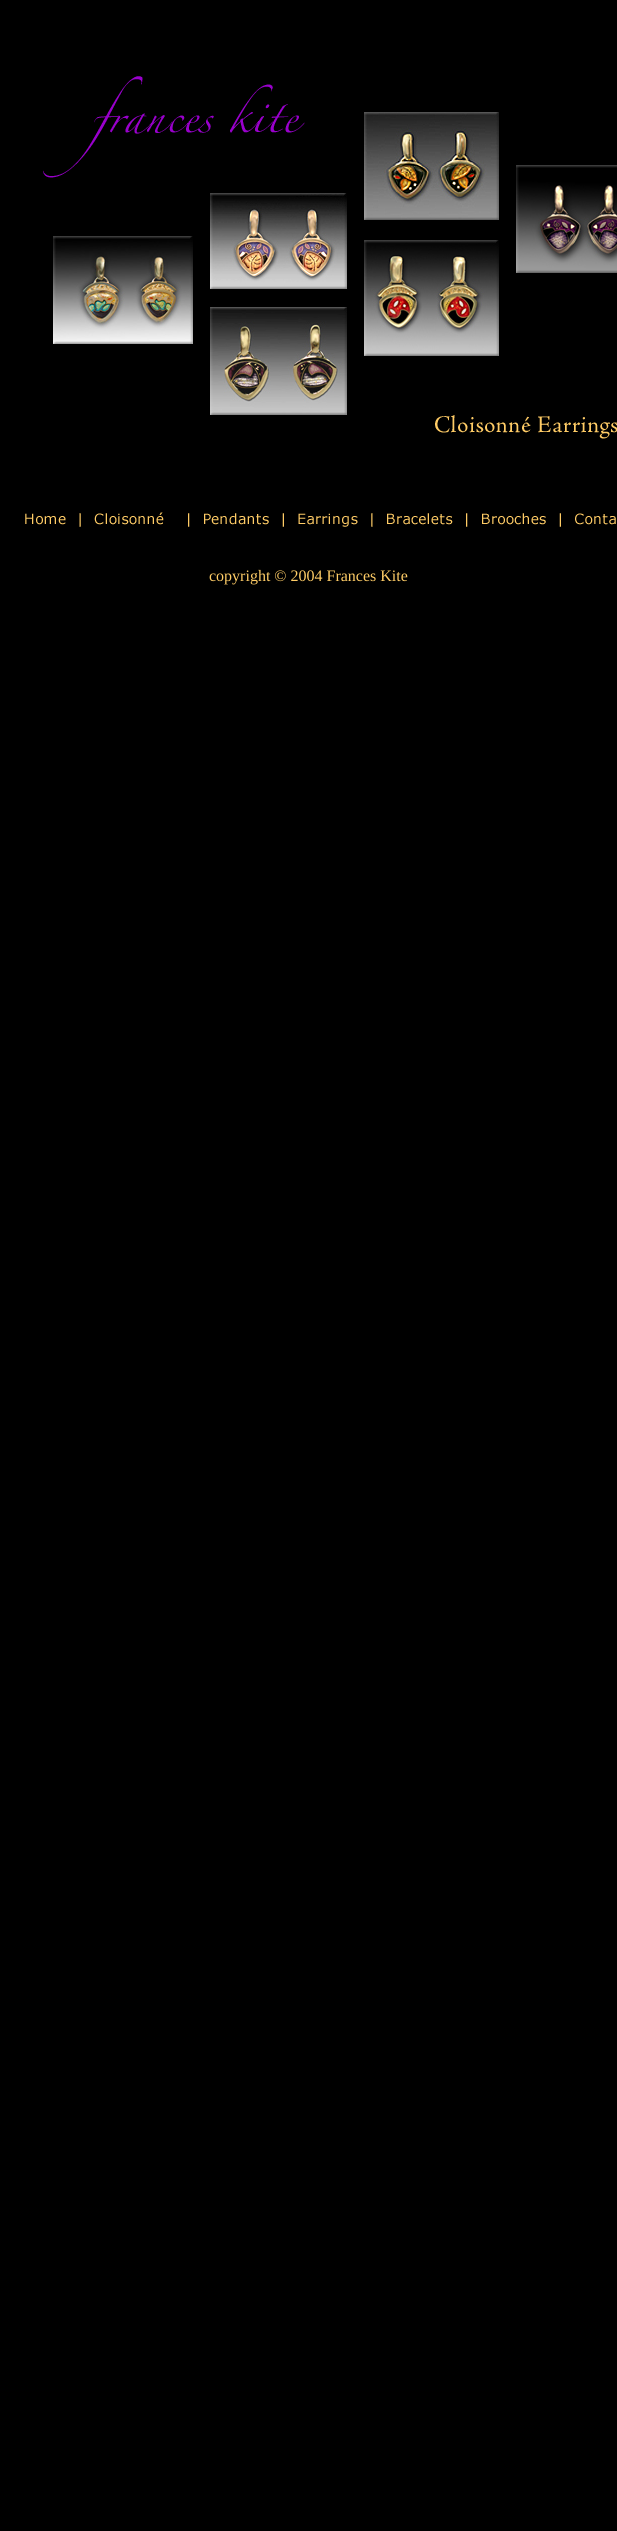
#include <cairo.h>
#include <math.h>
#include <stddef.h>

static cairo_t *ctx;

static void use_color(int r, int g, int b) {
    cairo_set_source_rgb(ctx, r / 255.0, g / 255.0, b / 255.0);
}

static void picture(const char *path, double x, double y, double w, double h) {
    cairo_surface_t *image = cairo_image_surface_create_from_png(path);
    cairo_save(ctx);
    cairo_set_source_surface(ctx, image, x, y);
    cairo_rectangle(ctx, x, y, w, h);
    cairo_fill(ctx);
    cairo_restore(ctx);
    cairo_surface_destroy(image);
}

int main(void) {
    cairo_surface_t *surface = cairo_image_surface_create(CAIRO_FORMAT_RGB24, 617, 2531);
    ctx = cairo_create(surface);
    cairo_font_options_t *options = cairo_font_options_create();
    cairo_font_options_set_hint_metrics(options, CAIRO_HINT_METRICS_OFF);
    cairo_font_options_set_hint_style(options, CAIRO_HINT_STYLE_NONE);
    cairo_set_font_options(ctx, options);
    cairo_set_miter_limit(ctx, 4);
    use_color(0, 0, 0);
    cairo_paint(ctx);
    picture("img1.png", 108, 76, 180, 36);
    picture("img2.png", 43, 112, 262, 66);
    picture("img3.png", 364, 112, 135, 108);
    picture("img4.png", 516, 165, 101, 108);
    picture("img5.png", 500, 422, 14, 11);
    picture("img6.png", 53, 236, 140, 108);
    picture("img7.png", 210, 193, 137, 96);
    picture("img8.png", 364, 240, 135, 115);
    picture("img9.png", 210, 307, 137, 108);
    picture("img10.png", 364, 355, 136, 78);
    picture("img11.png", 514, 416, 103, 23);
    picture("img12.png", 25, 513, 56, 14);
    picture("img13.png", 94, 512, 96, 15);
    picture("img14.png", 204, 513, 80, 14);
    picture("img15.png", 298, 513, 74, 14);
    picture("img16.png", 372, 513, 96, 14);
    picture("img17.png", 482, 513, 79, 14);
    picture("img18.png", 575, 513, 41, 12);
    cairo_select_font_face(ctx, "Liberation Serif", CAIRO_FONT_SLANT_NORMAL, CAIRO_FONT_WEIGHT_NORMAL);
    cairo_set_font_size(ctx, 16);
    use_color(255, 205, 103);
    cairo_move_to(ctx, 209, 581);
    cairo_show_text(ctx, "copyright © 2004 Frances Kite");
    cairo_surface_write_to_png(surface, "result.png");
    cairo_font_options_destroy(options);
    cairo_destroy(ctx);
    cairo_surface_destroy(surface);
    return 0;
}
